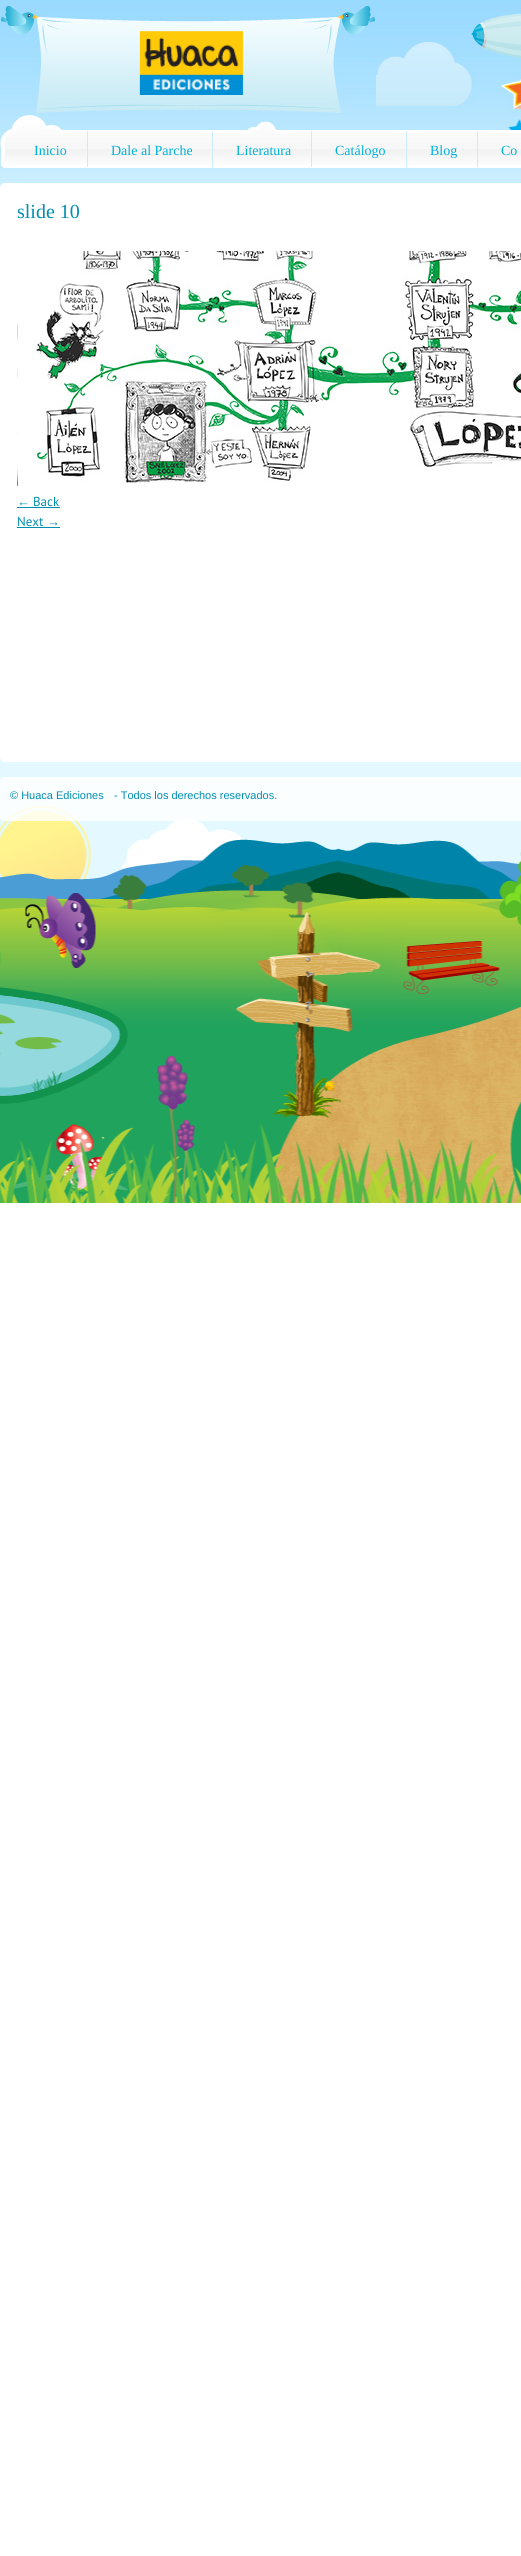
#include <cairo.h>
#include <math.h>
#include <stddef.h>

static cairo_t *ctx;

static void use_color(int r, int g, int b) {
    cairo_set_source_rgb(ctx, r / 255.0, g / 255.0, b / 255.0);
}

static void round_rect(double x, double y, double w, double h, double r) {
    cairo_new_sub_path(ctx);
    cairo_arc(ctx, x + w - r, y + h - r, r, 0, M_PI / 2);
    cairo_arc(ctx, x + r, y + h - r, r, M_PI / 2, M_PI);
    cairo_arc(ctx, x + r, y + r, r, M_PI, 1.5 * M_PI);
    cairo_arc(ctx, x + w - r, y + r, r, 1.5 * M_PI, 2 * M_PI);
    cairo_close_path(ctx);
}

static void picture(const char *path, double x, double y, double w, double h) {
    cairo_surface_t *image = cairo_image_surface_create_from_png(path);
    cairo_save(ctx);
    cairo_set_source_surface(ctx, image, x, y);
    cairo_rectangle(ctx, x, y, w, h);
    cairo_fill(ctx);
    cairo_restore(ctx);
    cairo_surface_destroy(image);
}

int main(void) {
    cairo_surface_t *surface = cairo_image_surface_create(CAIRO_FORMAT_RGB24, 521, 2556);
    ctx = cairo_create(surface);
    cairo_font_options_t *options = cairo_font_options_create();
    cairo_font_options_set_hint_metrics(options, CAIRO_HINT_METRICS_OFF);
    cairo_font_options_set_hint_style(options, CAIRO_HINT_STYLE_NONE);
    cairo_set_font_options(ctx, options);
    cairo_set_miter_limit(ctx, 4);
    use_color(255, 255, 255);
    cairo_paint(ctx);
    use_color(228, 249, 255);
    cairo_rectangle(ctx, 0, 760, 521, 46);
    cairo_fill(ctx);
    picture("img1.png", 0, 0, 521, 13);
    picture("img2.png", 0, 13, 521, 747);
    picture("img3.png", 0, 806, 521, 397);
    picture("img4.png", 176, 13, 11, 97);
    picture("img5.png", 0, 6, 176, 107);
    picture("img6.png", 187, 6, 189, 107);
    picture("img7.png", 139, 31, 105, 64);
    picture("img8.png", 471, 13, 50, 46);
    picture("img9.png", 0, 115, 64, 53);
    picture("img10.png", 64, 121, 455, 47);
    use_color(202, 236, 253);
    cairo_rectangle(ctx, 87, 131, 1, 36);
    cairo_fill(ctx);
    cairo_select_font_face(ctx, "Liberation Serif", CAIRO_FONT_SLANT_NORMAL, CAIRO_FONT_WEIGHT_NORMAL);
    cairo_set_font_size(ctx, 14);
    use_color(0, 178, 217);
    cairo_move_to(ctx, 34, 155);
    cairo_show_text(ctx, "Inicio");
    use_color(202, 236, 253);
    cairo_rectangle(ctx, 212, 131, 1, 36);
    cairo_fill(ctx);
    use_color(0, 178, 217);
    cairo_move_to(ctx, 111, 155);
    cairo_show_text(ctx, "Dale al Parche");
    use_color(202, 236, 253);
    cairo_rectangle(ctx, 311, 131, 1, 36);
    cairo_fill(ctx);
    use_color(0, 178, 217);
    cairo_move_to(ctx, 236, 155);
    cairo_show_text(ctx, "Literatura");
    use_color(202, 236, 253);
    cairo_rectangle(ctx, 406, 131, 1, 36);
    cairo_fill(ctx);
    use_color(0, 178, 217);
    cairo_move_to(ctx, 335, 155);
    cairo_show_text(ctx, "Catálogo");
    use_color(202, 236, 253);
    cairo_rectangle(ctx, 477, 131, 1, 36);
    cairo_fill(ctx);
    use_color(0, 178, 217);
    cairo_move_to(ctx, 430, 155);
    cairo_show_text(ctx, "Blog");
    cairo_move_to(ctx, 501, 155);
    cairo_show_text(ctx, "Co");
    picture("img11.png", 519, 130, 2, 38);
    use_color(255, 255, 255);
    round_rect(0, 183, 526, 579, 5);
    cairo_fill(ctx);
    cairo_set_font_size(ctx, 20);
    use_color(0, 142, 176);
    cairo_move_to(ctx, 17, 218);
    cairo_show_text(ctx, "slide 10");
    picture("img12.png", 17, 251, 504, 235);
    cairo_set_font_size(ctx, 13);
    cairo_move_to(ctx, 17, 506);
    cairo_show_text(ctx, "←");
    cairo_rectangle(ctx, 17, 507, 43, 1);
    cairo_fill(ctx);
    cairo_select_font_face(ctx, "PT Sans", CAIRO_FONT_SLANT_NORMAL, CAIRO_FONT_WEIGHT_NORMAL);
    cairo_move_to(ctx, 33, 506);
    cairo_show_text(ctx, "Back");
    cairo_move_to(ctx, 17, 526);
    cairo_show_text(ctx, "Next");
    cairo_select_font_face(ctx, "Liberation Serif", CAIRO_FONT_SLANT_NORMAL, CAIRO_FONT_WEIGHT_NORMAL);
    cairo_move_to(ctx, 47, 526);
    cairo_show_text(ctx, "→");
    cairo_rectangle(ctx, 17, 527, 43, 1);
    cairo_fill(ctx);
    picture("img13.png", 0, 777, 521, 44);
    cairo_select_font_face(ctx, "Liberation Sans", CAIRO_FONT_SLANT_NORMAL, CAIRO_FONT_WEIGHT_NORMAL);
    cairo_set_font_size(ctx, 11);
    cairo_move_to(ctx, 10, 799);
    cairo_show_text(ctx, "© Huaca Ediciones");
    cairo_move_to(ctx, 114, 799);
    cairo_show_text(ctx, "- Todos los derechos reservados.");
    cairo_surface_write_to_png(surface, "result.png");
    cairo_font_options_destroy(options);
    cairo_destroy(ctx);
    cairo_surface_destroy(surface);
    return 0;
}
